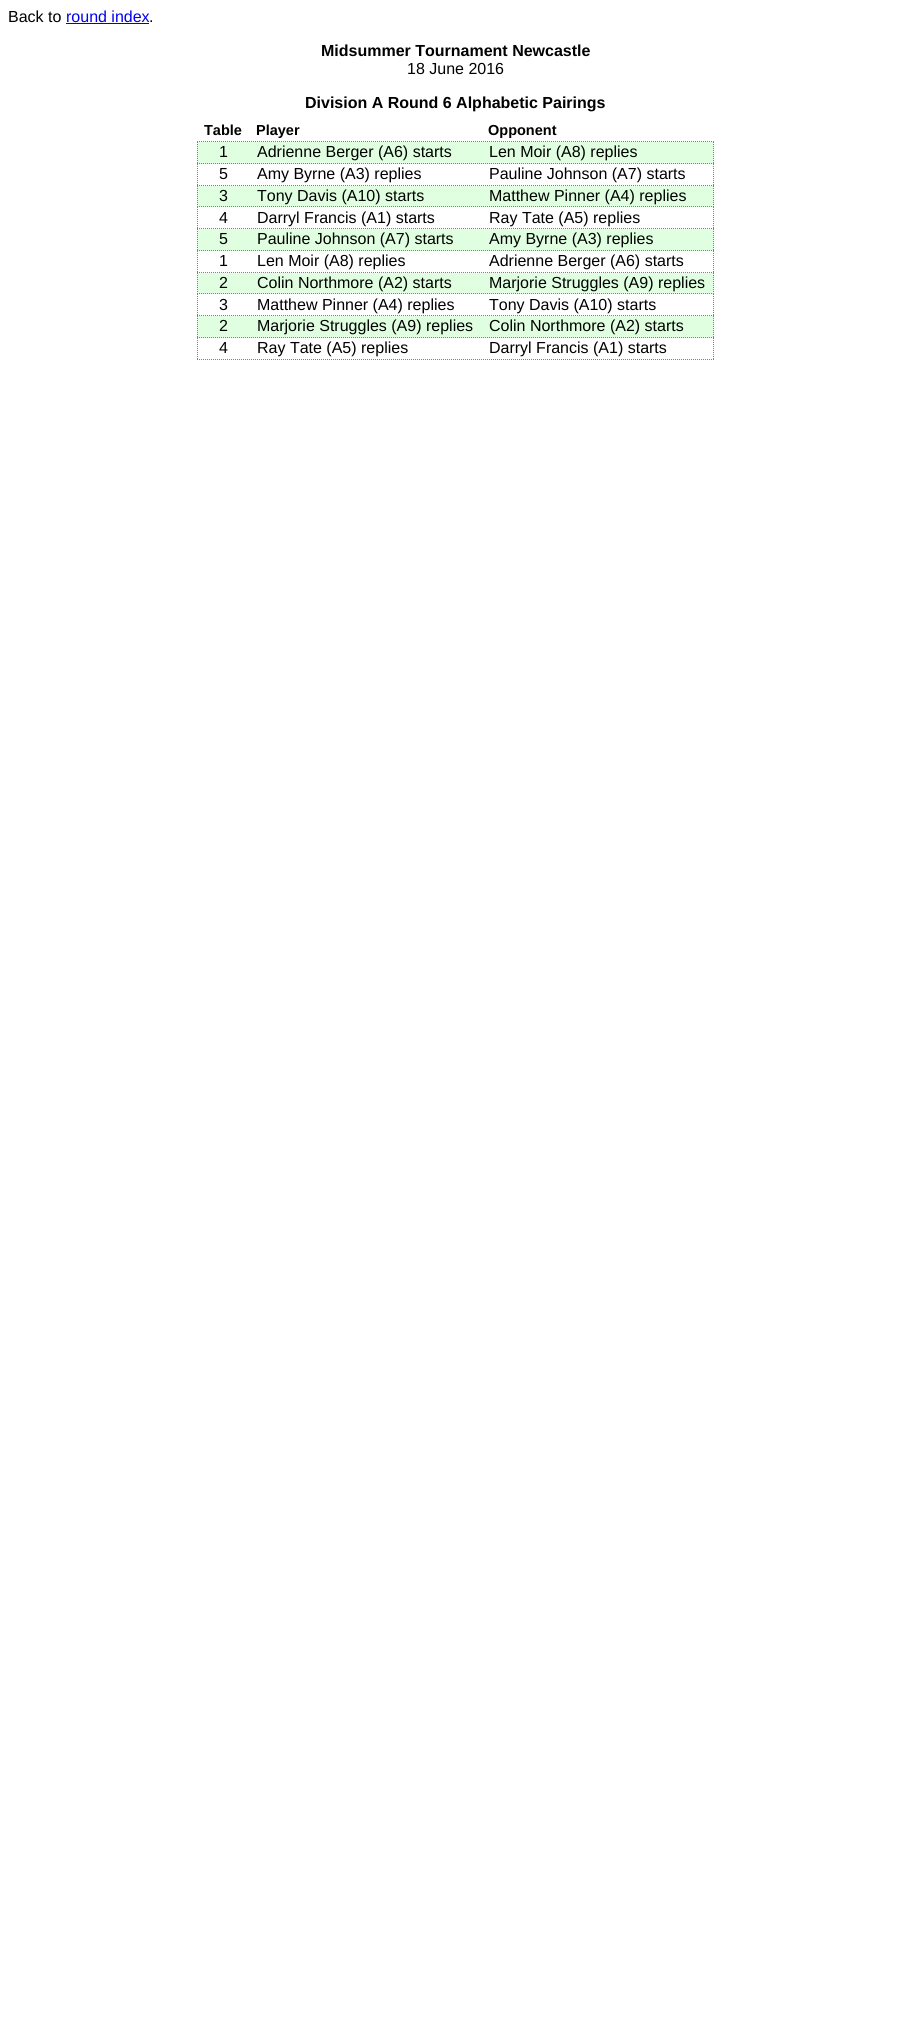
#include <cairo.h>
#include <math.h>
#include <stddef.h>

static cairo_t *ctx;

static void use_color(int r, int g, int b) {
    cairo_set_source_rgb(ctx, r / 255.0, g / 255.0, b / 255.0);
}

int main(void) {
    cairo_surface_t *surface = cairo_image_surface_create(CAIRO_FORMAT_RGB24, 911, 2044);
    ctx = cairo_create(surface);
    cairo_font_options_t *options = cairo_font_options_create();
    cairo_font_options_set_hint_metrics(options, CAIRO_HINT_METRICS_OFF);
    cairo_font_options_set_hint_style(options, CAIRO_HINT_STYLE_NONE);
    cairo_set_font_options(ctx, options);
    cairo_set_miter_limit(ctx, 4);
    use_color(255, 255, 255);
    cairo_paint(ctx);
    cairo_select_font_face(ctx, "Liberation Sans", CAIRO_FONT_SLANT_NORMAL, CAIRO_FONT_WEIGHT_NORMAL);
    cairo_set_font_size(ctx, 16);
    use_color(0, 0, 0);
    cairo_move_to(ctx, 8, 22);
    cairo_show_text(ctx, "Back to");
    use_color(0, 0, 238);
    cairo_move_to(ctx, 66, 22);
    cairo_show_text(ctx, "round index");
    cairo_rectangle(ctx, 66, 23, 83, 1);
    cairo_fill(ctx);
    use_color(0, 0, 0);
    cairo_move_to(ctx, 149, 22);
    cairo_show_text(ctx, ".");
    cairo_select_font_face(ctx, "Liberation Sans", CAIRO_FONT_SLANT_NORMAL, CAIRO_FONT_WEIGHT_BOLD);
    cairo_move_to(ctx, 321, 56);
    cairo_show_text(ctx, "Midsummer Tournament Newcastle");
    cairo_select_font_face(ctx, "Liberation Sans", CAIRO_FONT_SLANT_NORMAL, CAIRO_FONT_WEIGHT_NORMAL);
    cairo_move_to(ctx, 407, 74);
    cairo_show_text(ctx, "18 June 2016");
    cairo_select_font_face(ctx, "Liberation Sans", CAIRO_FONT_SLANT_NORMAL, CAIRO_FONT_WEIGHT_BOLD);
    cairo_move_to(ctx, 305, 108);
    cairo_show_text(ctx, "Division A Round 6 Alphabetic Pairings");
    cairo_new_path(ctx);
    cairo_move_to(ctx, 197, 141.5);
    cairo_line_to(ctx, 249, 141.5);
    use_color(128, 128, 128);
    cairo_set_line_width(ctx, 1);
    cairo_set_dash(ctx, (double[]){1, 1}, 2, 0);
    cairo_stroke(ctx);
    cairo_set_font_size(ctx, 14.5);
    use_color(0, 0, 0);
    cairo_move_to(ctx, 204, 135);
    cairo_show_text(ctx, "Table");
    cairo_new_path(ctx);
    cairo_move_to(ctx, 249, 141.5);
    cairo_line_to(ctx, 481, 141.5);
    use_color(128, 128, 128);
    cairo_stroke(ctx);
    use_color(0, 0, 0);
    cairo_move_to(ctx, 256, 135);
    cairo_show_text(ctx, "Player");
    cairo_new_path(ctx);
    cairo_move_to(ctx, 481, 141.5);
    cairo_line_to(ctx, 714, 141.5);
    use_color(128, 128, 128);
    cairo_stroke(ctx);
    use_color(0, 0, 0);
    cairo_move_to(ctx, 488, 135);
    cairo_show_text(ctx, "Opponent");
    use_color(224, 255, 224);
    cairo_rectangle(ctx, 197, 142, 517, 22);
    cairo_fill(ctx);
    cairo_new_path(ctx);
    cairo_move_to(ctx, 197, 163.5);
    cairo_line_to(ctx, 249, 163.5);
    cairo_move_to(ctx, 197.5, 142);
    cairo_line_to(ctx, 197.5, 164);
    use_color(128, 128, 128);
    cairo_stroke(ctx);
    cairo_select_font_face(ctx, "Liberation Sans", CAIRO_FONT_SLANT_NORMAL, CAIRO_FONT_WEIGHT_NORMAL);
    cairo_set_font_size(ctx, 16);
    use_color(0, 0, 0);
    cairo_move_to(ctx, 219, 157);
    cairo_show_text(ctx, "1");
    cairo_new_path(ctx);
    cairo_move_to(ctx, 249, 163.5);
    cairo_line_to(ctx, 481, 163.5);
    use_color(128, 128, 128);
    cairo_stroke(ctx);
    use_color(0, 0, 0);
    cairo_move_to(ctx, 257, 157);
    cairo_show_text(ctx, "Adrienne Berger (A6) starts");
    cairo_new_path(ctx);
    cairo_move_to(ctx, 713.5, 142);
    cairo_line_to(ctx, 713.5, 164);
    use_color(128, 128, 128);
    cairo_stroke(ctx);
    cairo_new_path(ctx);
    cairo_move_to(ctx, 481, 163.5);
    cairo_line_to(ctx, 714, 163.5);
    cairo_stroke(ctx);
    use_color(0, 0, 0);
    cairo_move_to(ctx, 489, 157);
    cairo_show_text(ctx, "Len Moir (A8) replies");
    cairo_new_path(ctx);
    cairo_move_to(ctx, 197, 185.5);
    cairo_line_to(ctx, 249, 185.5);
    cairo_move_to(ctx, 197.5, 164);
    cairo_line_to(ctx, 197.5, 186);
    use_color(128, 128, 128);
    cairo_stroke(ctx);
    use_color(0, 0, 0);
    cairo_move_to(ctx, 219, 179);
    cairo_show_text(ctx, "5");
    cairo_new_path(ctx);
    cairo_move_to(ctx, 249, 185.5);
    cairo_line_to(ctx, 481, 185.5);
    use_color(128, 128, 128);
    cairo_stroke(ctx);
    use_color(0, 0, 0);
    cairo_move_to(ctx, 257, 179);
    cairo_show_text(ctx, "Amy Byrne (A3) replies");
    cairo_new_path(ctx);
    cairo_move_to(ctx, 713.5, 164);
    cairo_line_to(ctx, 713.5, 186);
    use_color(128, 128, 128);
    cairo_stroke(ctx);
    cairo_new_path(ctx);
    cairo_move_to(ctx, 481, 185.5);
    cairo_line_to(ctx, 714, 185.5);
    cairo_stroke(ctx);
    use_color(0, 0, 0);
    cairo_move_to(ctx, 489, 179);
    cairo_show_text(ctx, "Pauline Johnson (A7) starts");
    use_color(224, 255, 224);
    cairo_rectangle(ctx, 197, 186, 517, 21);
    cairo_fill(ctx);
    cairo_new_path(ctx);
    cairo_move_to(ctx, 197, 206.5);
    cairo_line_to(ctx, 249, 206.5);
    cairo_move_to(ctx, 197.5, 186);
    cairo_line_to(ctx, 197.5, 207);
    use_color(128, 128, 128);
    cairo_stroke(ctx);
    use_color(0, 0, 0);
    cairo_move_to(ctx, 219, 201);
    cairo_show_text(ctx, "3");
    cairo_new_path(ctx);
    cairo_move_to(ctx, 249, 206.5);
    cairo_line_to(ctx, 481, 206.5);
    use_color(128, 128, 128);
    cairo_stroke(ctx);
    use_color(0, 0, 0);
    cairo_move_to(ctx, 257, 201);
    cairo_show_text(ctx, "Tony Davis (A10) starts");
    cairo_new_path(ctx);
    cairo_move_to(ctx, 713.5, 186);
    cairo_line_to(ctx, 713.5, 207);
    use_color(128, 128, 128);
    cairo_stroke(ctx);
    cairo_new_path(ctx);
    cairo_move_to(ctx, 481, 206.5);
    cairo_line_to(ctx, 714, 206.5);
    cairo_stroke(ctx);
    use_color(0, 0, 0);
    cairo_move_to(ctx, 489, 201);
    cairo_show_text(ctx, "Matthew Pinner (A4) replies");
    cairo_new_path(ctx);
    cairo_move_to(ctx, 197, 228.5);
    cairo_line_to(ctx, 249, 228.5);
    cairo_move_to(ctx, 197.5, 207);
    cairo_line_to(ctx, 197.5, 229);
    use_color(128, 128, 128);
    cairo_stroke(ctx);
    use_color(0, 0, 0);
    cairo_move_to(ctx, 219, 223);
    cairo_show_text(ctx, "4");
    cairo_new_path(ctx);
    cairo_move_to(ctx, 249, 228.5);
    cairo_line_to(ctx, 481, 228.5);
    use_color(128, 128, 128);
    cairo_stroke(ctx);
    use_color(0, 0, 0);
    cairo_move_to(ctx, 257, 223);
    cairo_show_text(ctx, "Darryl Francis (A1) starts");
    cairo_new_path(ctx);
    cairo_move_to(ctx, 713.5, 207);
    cairo_line_to(ctx, 713.5, 229);
    use_color(128, 128, 128);
    cairo_stroke(ctx);
    cairo_new_path(ctx);
    cairo_move_to(ctx, 481, 228.5);
    cairo_line_to(ctx, 714, 228.5);
    cairo_stroke(ctx);
    use_color(0, 0, 0);
    cairo_move_to(ctx, 489, 223);
    cairo_show_text(ctx, "Ray Tate (A5) replies");
    use_color(224, 255, 224);
    cairo_rectangle(ctx, 197, 229, 517, 22);
    cairo_fill(ctx);
    cairo_new_path(ctx);
    cairo_move_to(ctx, 197, 250.5);
    cairo_line_to(ctx, 249, 250.5);
    cairo_move_to(ctx, 197.5, 229);
    cairo_line_to(ctx, 197.5, 251);
    use_color(128, 128, 128);
    cairo_stroke(ctx);
    use_color(0, 0, 0);
    cairo_move_to(ctx, 219, 244);
    cairo_show_text(ctx, "5");
    cairo_new_path(ctx);
    cairo_move_to(ctx, 249, 250.5);
    cairo_line_to(ctx, 481, 250.5);
    use_color(128, 128, 128);
    cairo_stroke(ctx);
    use_color(0, 0, 0);
    cairo_move_to(ctx, 257, 244);
    cairo_show_text(ctx, "Pauline Johnson (A7) starts");
    cairo_new_path(ctx);
    cairo_move_to(ctx, 713.5, 229);
    cairo_line_to(ctx, 713.5, 251);
    use_color(128, 128, 128);
    cairo_stroke(ctx);
    cairo_new_path(ctx);
    cairo_move_to(ctx, 481, 250.5);
    cairo_line_to(ctx, 714, 250.5);
    cairo_stroke(ctx);
    use_color(0, 0, 0);
    cairo_move_to(ctx, 489, 244);
    cairo_show_text(ctx, "Amy Byrne (A3) replies");
    cairo_new_path(ctx);
    cairo_move_to(ctx, 197, 272.5);
    cairo_line_to(ctx, 249, 272.5);
    cairo_move_to(ctx, 197.5, 251);
    cairo_line_to(ctx, 197.5, 273);
    use_color(128, 128, 128);
    cairo_stroke(ctx);
    use_color(0, 0, 0);
    cairo_move_to(ctx, 219, 266);
    cairo_show_text(ctx, "1");
    cairo_new_path(ctx);
    cairo_move_to(ctx, 249, 272.5);
    cairo_line_to(ctx, 481, 272.5);
    use_color(128, 128, 128);
    cairo_stroke(ctx);
    use_color(0, 0, 0);
    cairo_move_to(ctx, 257, 266);
    cairo_show_text(ctx, "Len Moir (A8) replies");
    cairo_new_path(ctx);
    cairo_move_to(ctx, 713.5, 251);
    cairo_line_to(ctx, 713.5, 273);
    use_color(128, 128, 128);
    cairo_stroke(ctx);
    cairo_new_path(ctx);
    cairo_move_to(ctx, 481, 272.5);
    cairo_line_to(ctx, 714, 272.5);
    cairo_stroke(ctx);
    use_color(0, 0, 0);
    cairo_move_to(ctx, 489, 266);
    cairo_show_text(ctx, "Adrienne Berger (A6) starts");
    use_color(224, 255, 224);
    cairo_rectangle(ctx, 197, 273, 517, 21);
    cairo_fill(ctx);
    cairo_new_path(ctx);
    cairo_move_to(ctx, 197, 293.5);
    cairo_line_to(ctx, 249, 293.5);
    cairo_move_to(ctx, 197.5, 273);
    cairo_line_to(ctx, 197.5, 294);
    use_color(128, 128, 128);
    cairo_stroke(ctx);
    use_color(0, 0, 0);
    cairo_move_to(ctx, 219, 288);
    cairo_show_text(ctx, "2");
    cairo_new_path(ctx);
    cairo_move_to(ctx, 249, 293.5);
    cairo_line_to(ctx, 481, 293.5);
    use_color(128, 128, 128);
    cairo_stroke(ctx);
    use_color(0, 0, 0);
    cairo_move_to(ctx, 257, 288);
    cairo_show_text(ctx, "Colin Northmore (A2) starts");
    cairo_new_path(ctx);
    cairo_move_to(ctx, 713.5, 273);
    cairo_line_to(ctx, 713.5, 294);
    use_color(128, 128, 128);
    cairo_stroke(ctx);
    cairo_new_path(ctx);
    cairo_move_to(ctx, 481, 293.5);
    cairo_line_to(ctx, 714, 293.5);
    cairo_stroke(ctx);
    use_color(0, 0, 0);
    cairo_move_to(ctx, 489, 288);
    cairo_show_text(ctx, "Marjorie Struggles (A9) replies");
    cairo_new_path(ctx);
    cairo_move_to(ctx, 197, 315.5);
    cairo_line_to(ctx, 249, 315.5);
    cairo_move_to(ctx, 197.5, 294);
    cairo_line_to(ctx, 197.5, 316);
    use_color(128, 128, 128);
    cairo_stroke(ctx);
    use_color(0, 0, 0);
    cairo_move_to(ctx, 219, 310);
    cairo_show_text(ctx, "3");
    cairo_new_path(ctx);
    cairo_move_to(ctx, 249, 315.5);
    cairo_line_to(ctx, 481, 315.5);
    use_color(128, 128, 128);
    cairo_stroke(ctx);
    use_color(0, 0, 0);
    cairo_move_to(ctx, 257, 310);
    cairo_show_text(ctx, "Matthew Pinner (A4) replies");
    cairo_new_path(ctx);
    cairo_move_to(ctx, 713.5, 294);
    cairo_line_to(ctx, 713.5, 316);
    use_color(128, 128, 128);
    cairo_stroke(ctx);
    cairo_new_path(ctx);
    cairo_move_to(ctx, 481, 315.5);
    cairo_line_to(ctx, 714, 315.5);
    cairo_stroke(ctx);
    use_color(0, 0, 0);
    cairo_move_to(ctx, 489, 310);
    cairo_show_text(ctx, "Tony Davis (A10) starts");
    use_color(224, 255, 224);
    cairo_rectangle(ctx, 197, 316, 517, 22);
    cairo_fill(ctx);
    cairo_new_path(ctx);
    cairo_move_to(ctx, 197, 337.5);
    cairo_line_to(ctx, 249, 337.5);
    cairo_move_to(ctx, 197.5, 316);
    cairo_line_to(ctx, 197.5, 338);
    use_color(128, 128, 128);
    cairo_stroke(ctx);
    use_color(0, 0, 0);
    cairo_move_to(ctx, 219, 331);
    cairo_show_text(ctx, "2");
    cairo_new_path(ctx);
    cairo_move_to(ctx, 249, 337.5);
    cairo_line_to(ctx, 481, 337.5);
    use_color(128, 128, 128);
    cairo_stroke(ctx);
    use_color(0, 0, 0);
    cairo_move_to(ctx, 257, 331);
    cairo_show_text(ctx, "Marjorie Struggles (A9) replies");
    cairo_new_path(ctx);
    cairo_move_to(ctx, 713.5, 316);
    cairo_line_to(ctx, 713.5, 338);
    use_color(128, 128, 128);
    cairo_stroke(ctx);
    cairo_new_path(ctx);
    cairo_move_to(ctx, 481, 337.5);
    cairo_line_to(ctx, 714, 337.5);
    cairo_stroke(ctx);
    use_color(0, 0, 0);
    cairo_move_to(ctx, 489, 331);
    cairo_show_text(ctx, "Colin Northmore (A2) starts");
    cairo_new_path(ctx);
    cairo_move_to(ctx, 197, 359.5);
    cairo_line_to(ctx, 249, 359.5);
    cairo_move_to(ctx, 197.5, 338);
    cairo_line_to(ctx, 197.5, 360);
    use_color(128, 128, 128);
    cairo_stroke(ctx);
    use_color(0, 0, 0);
    cairo_move_to(ctx, 219, 353);
    cairo_show_text(ctx, "4");
    cairo_new_path(ctx);
    cairo_move_to(ctx, 249, 359.5);
    cairo_line_to(ctx, 481, 359.5);
    use_color(128, 128, 128);
    cairo_stroke(ctx);
    use_color(0, 0, 0);
    cairo_move_to(ctx, 257, 353);
    cairo_show_text(ctx, "Ray Tate (A5) replies");
    cairo_new_path(ctx);
    cairo_move_to(ctx, 713.5, 338);
    cairo_line_to(ctx, 713.5, 360);
    use_color(128, 128, 128);
    cairo_stroke(ctx);
    cairo_new_path(ctx);
    cairo_move_to(ctx, 481, 359.5);
    cairo_line_to(ctx, 714, 359.5);
    cairo_stroke(ctx);
    use_color(0, 0, 0);
    cairo_move_to(ctx, 489, 353);
    cairo_show_text(ctx, "Darryl Francis (A1) starts");
    cairo_surface_write_to_png(surface, "result.png");
    cairo_font_options_destroy(options);
    cairo_destroy(ctx);
    cairo_surface_destroy(surface);
    return 0;
}
